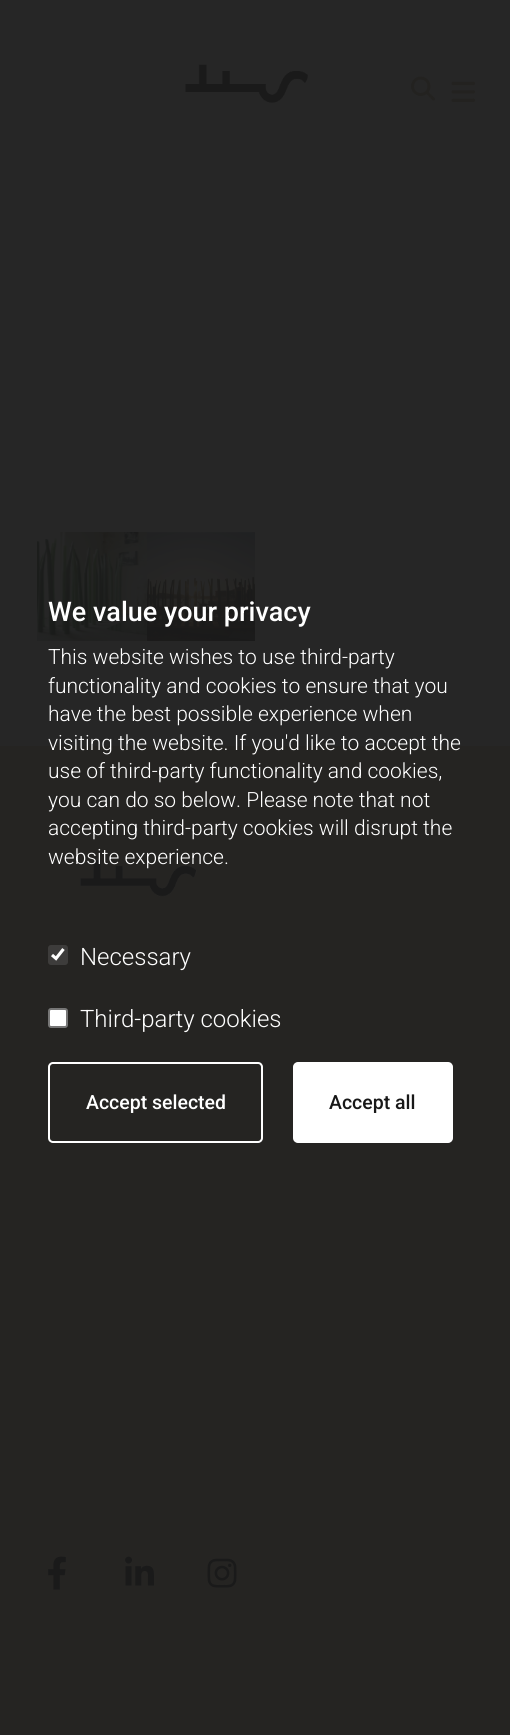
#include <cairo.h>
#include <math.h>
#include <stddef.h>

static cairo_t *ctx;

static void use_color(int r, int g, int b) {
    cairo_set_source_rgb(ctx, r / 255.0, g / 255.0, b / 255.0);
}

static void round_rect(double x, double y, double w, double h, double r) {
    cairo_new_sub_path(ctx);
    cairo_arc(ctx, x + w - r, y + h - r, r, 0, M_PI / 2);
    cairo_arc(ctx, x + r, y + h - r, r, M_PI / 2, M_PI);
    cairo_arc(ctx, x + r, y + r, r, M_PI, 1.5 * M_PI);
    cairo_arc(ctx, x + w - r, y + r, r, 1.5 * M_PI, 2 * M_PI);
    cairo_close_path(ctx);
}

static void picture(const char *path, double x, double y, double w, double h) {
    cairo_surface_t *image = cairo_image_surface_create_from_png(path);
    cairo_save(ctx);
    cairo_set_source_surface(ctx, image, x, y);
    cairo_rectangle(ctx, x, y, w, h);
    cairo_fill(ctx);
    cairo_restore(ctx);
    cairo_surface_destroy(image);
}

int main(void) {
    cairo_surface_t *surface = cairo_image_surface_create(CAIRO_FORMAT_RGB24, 510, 1735);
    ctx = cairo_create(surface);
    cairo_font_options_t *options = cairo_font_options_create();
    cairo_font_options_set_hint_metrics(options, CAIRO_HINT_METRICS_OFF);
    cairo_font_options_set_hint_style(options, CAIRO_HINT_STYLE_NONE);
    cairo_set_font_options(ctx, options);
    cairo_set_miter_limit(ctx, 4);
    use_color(38, 38, 38);
    cairo_paint(ctx);
    picture("img1.png", 185, 64, 123, 39);
    picture("img2.png", 411, 76, 24, 25);
    picture("img3.png", 451, 81, 25, 21);
    picture("img4.png", 37, 532, 110, 109);
    picture("img5.png", 147, 532, 108, 109);
    use_color(37, 36, 34);
    cairo_rectangle(ctx, 0, 746, 510, 989);
    cairo_fill(ctx);
    picture("img6.png", 80, 860, 117, 37);
    picture("img7.png", 48, 1556, 18, 34);
    picture("img8.png", 125, 1556, 29, 30);
    picture("img9.png", 207, 1558, 30, 30);
    cairo_select_font_face(ctx, "Roboto Medium", CAIRO_FONT_SLANT_NORMAL, CAIRO_FONT_WEIGHT_NORMAL);
    cairo_set_font_size(ctx, 27);
    use_color(255, 255, 255);
    cairo_move_to(ctx, 48, 621);
    cairo_show_text(ctx, "We value your privacy");
    cairo_select_font_face(ctx, "Roboto Light", CAIRO_FONT_SLANT_NORMAL, CAIRO_FONT_WEIGHT_NORMAL);
    cairo_set_font_size(ctx, 21);
    cairo_move_to(ctx, 48, 664);
    cairo_show_text(ctx, "This website wishes to use third-party");
    cairo_move_to(ctx, 48, 693);
    cairo_show_text(ctx, "functionality and cookies to ensure that you");
    cairo_move_to(ctx, 48, 721);
    cairo_show_text(ctx, "have the best possible experience when");
    cairo_move_to(ctx, 48, 750);
    cairo_show_text(ctx, "visiting the website. If you'd like to accept the");
    cairo_move_to(ctx, 48, 778);
    cairo_show_text(ctx, "use of third-party functionality and cookies,");
    cairo_move_to(ctx, 48, 807);
    cairo_show_text(ctx, "you can do so below. Please note that not");
    cairo_move_to(ctx, 48, 835);
    cairo_show_text(ctx, "accepting third-party cookies will disrupt the");
    cairo_move_to(ctx, 48, 864);
    cairo_show_text(ctx, "website experience.");
    use_color(61, 60, 59);
    round_rect(48, 945, 20, 20, 3);
    cairo_fill(ctx);
    cairo_new_path(ctx);
    cairo_move_to(ctx, 52, 955);
    cairo_line_to(ctx, 56, 958.5);
    cairo_line_to(ctx, 63.5, 949);
    use_color(255, 255, 255);
    cairo_set_line_width(ctx, 3.1);
    cairo_stroke(ctx);
    cairo_set_font_size(ctx, 24);
    cairo_move_to(ctx, 80, 965);
    cairo_show_text(ctx, "Necessary");
    round_rect(49, 1009, 18, 18, 2);
    cairo_fill_preserve(ctx);
    use_color(118, 118, 118);
    cairo_set_line_width(ctx, 2);
    cairo_stroke(ctx);
    use_color(255, 255, 255);
    cairo_move_to(ctx, 80, 1027);
    cairo_show_text(ctx, "Third-party cookies");
    round_rect(49, 1063, 213, 79, 4);
    cairo_stroke(ctx);
    cairo_select_font_face(ctx, "Roboto Medium", CAIRO_FONT_SLANT_NORMAL, CAIRO_FONT_WEIGHT_NORMAL);
    cairo_set_font_size(ctx, 19.5);
    cairo_move_to(ctx, 86, 1109);
    cairo_show_text(ctx, "Accept selected");
    round_rect(294, 1063, 158, 79, 4);
    cairo_fill_preserve(ctx);
    cairo_stroke(ctx);
    use_color(24, 24, 24);
    cairo_move_to(ctx, 329, 1109);
    cairo_show_text(ctx, "Accept all");
    cairo_surface_write_to_png(surface, "result.png");
    cairo_font_options_destroy(options);
    cairo_destroy(ctx);
    cairo_surface_destroy(surface);
    return 0;
}
